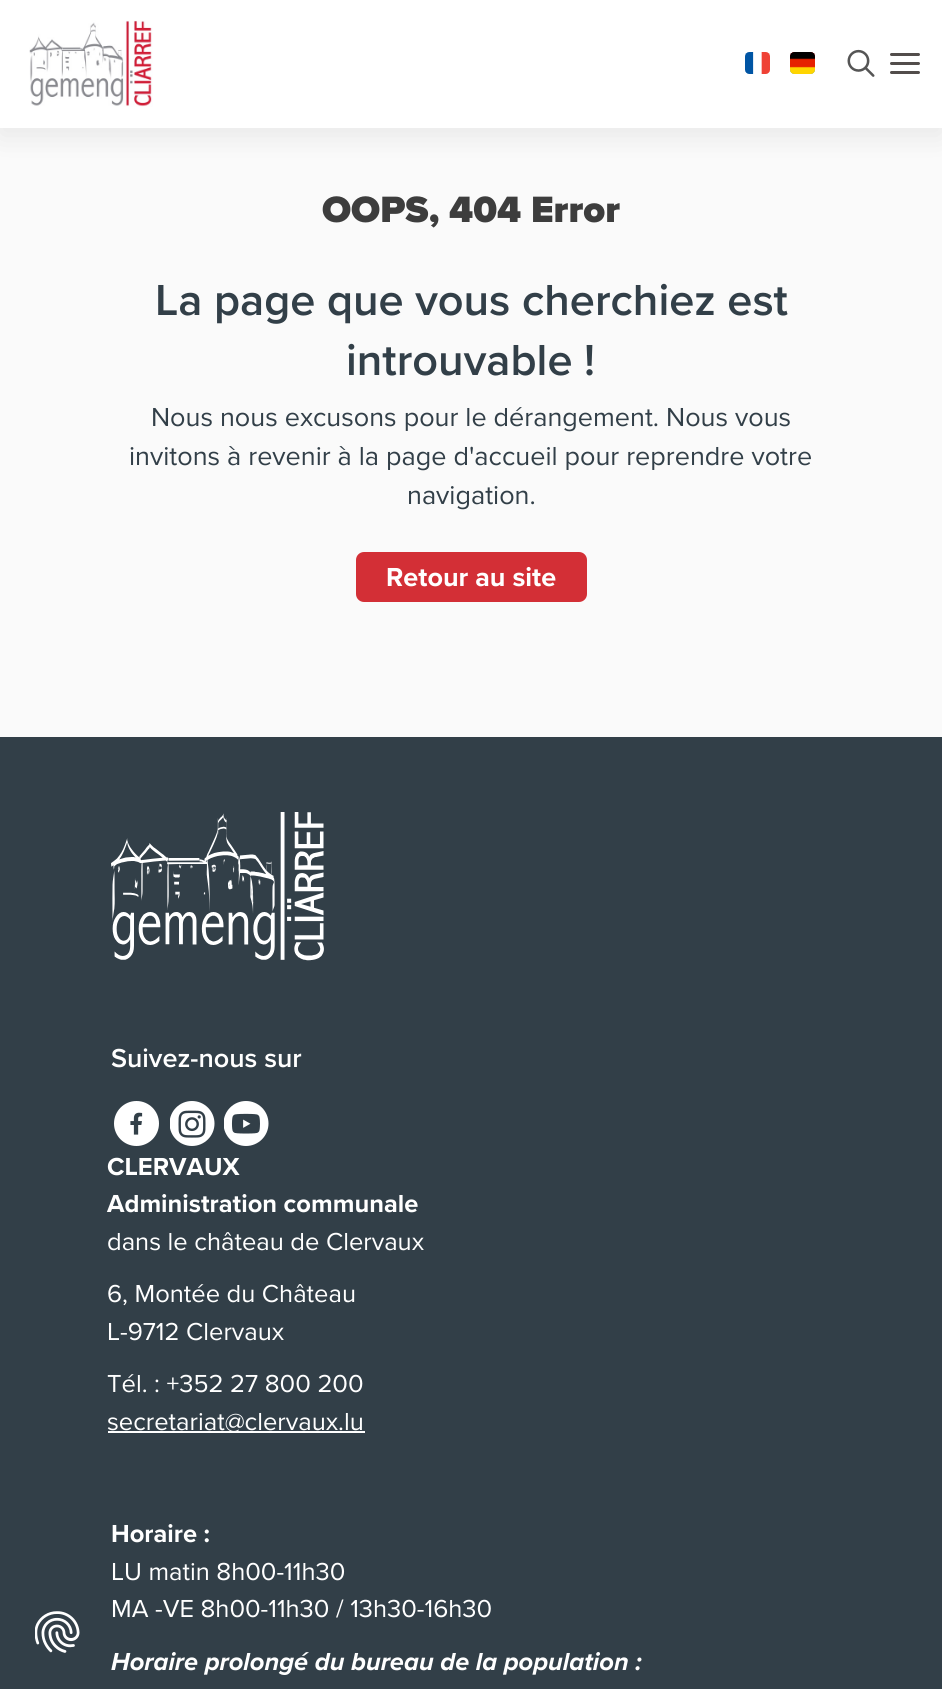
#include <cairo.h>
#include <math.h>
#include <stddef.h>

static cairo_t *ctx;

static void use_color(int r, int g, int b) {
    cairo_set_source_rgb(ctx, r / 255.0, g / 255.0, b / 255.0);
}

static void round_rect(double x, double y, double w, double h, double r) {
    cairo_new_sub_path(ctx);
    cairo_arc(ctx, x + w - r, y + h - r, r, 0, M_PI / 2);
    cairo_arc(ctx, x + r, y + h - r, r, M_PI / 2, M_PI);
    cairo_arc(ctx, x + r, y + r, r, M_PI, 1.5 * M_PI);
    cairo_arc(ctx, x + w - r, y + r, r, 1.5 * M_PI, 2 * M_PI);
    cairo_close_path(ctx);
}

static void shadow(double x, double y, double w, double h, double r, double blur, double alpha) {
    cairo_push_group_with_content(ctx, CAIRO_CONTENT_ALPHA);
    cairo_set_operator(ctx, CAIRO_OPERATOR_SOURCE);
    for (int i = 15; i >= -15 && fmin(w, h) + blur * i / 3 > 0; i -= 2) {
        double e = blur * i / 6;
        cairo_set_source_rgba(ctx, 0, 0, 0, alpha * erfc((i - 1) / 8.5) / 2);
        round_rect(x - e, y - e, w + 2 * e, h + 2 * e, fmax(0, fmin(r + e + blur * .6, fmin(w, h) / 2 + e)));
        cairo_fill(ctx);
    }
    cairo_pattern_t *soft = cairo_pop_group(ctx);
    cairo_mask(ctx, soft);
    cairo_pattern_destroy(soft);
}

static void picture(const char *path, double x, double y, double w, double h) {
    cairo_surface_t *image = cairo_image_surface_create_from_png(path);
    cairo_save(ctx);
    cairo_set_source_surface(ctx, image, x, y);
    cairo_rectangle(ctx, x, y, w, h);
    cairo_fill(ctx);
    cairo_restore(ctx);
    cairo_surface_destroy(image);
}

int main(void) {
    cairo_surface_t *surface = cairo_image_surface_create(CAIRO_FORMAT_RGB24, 942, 1689);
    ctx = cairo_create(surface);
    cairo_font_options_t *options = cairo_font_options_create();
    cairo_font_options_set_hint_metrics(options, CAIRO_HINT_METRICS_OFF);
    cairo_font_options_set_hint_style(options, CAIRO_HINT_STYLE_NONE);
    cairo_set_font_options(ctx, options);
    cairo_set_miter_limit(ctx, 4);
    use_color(250, 250, 250);
    cairo_paint(ctx);
    use_color(50, 63, 72);
    cairo_rectangle(ctx, 0, 737, 942, 952);
    cairo_fill(ctx);
    picture("img1.png", 35, 1611, 45, 42);
    use_color(0, 0, 0);
    shadow(0, 8, 942, 127, 0, 15, 0.08);
    use_color(255, 255, 255);
    cairo_rectangle(ctx, 0, 0, 942, 128);
    cairo_fill(ctx);
    picture("img2.png", 29, 20, 124, 87);
    picture("img3.png", 745, 52, 25, 22);
    picture("img4.png", 790, 52, 25, 22);
    picture("img5.png", 847, 49, 28, 28);
    use_color(82, 77, 75);
    round_rect(890, 53, 30, 3, 1.5);
    cairo_fill(ctx);
    round_rect(890, 62, 30, 3, 1.5);
    cairo_fill(ctx);
    round_rect(890, 71, 30, 3, 1.5);
    cairo_fill(ctx);
    cairo_select_font_face(ctx, "Proxima Nova Black", CAIRO_FONT_SLANT_NORMAL, CAIRO_FONT_WEIGHT_NORMAL);
    cairo_set_font_size(ctx, 38);
    use_color(61, 61, 61);
    cairo_move_to(ctx, 322, 222);
    cairo_show_text(ctx, "OOPS, 404 Error");
    cairo_select_font_face(ctx, "Proxima Nova SemiBold", CAIRO_FONT_SLANT_NORMAL, CAIRO_FONT_WEIGHT_NORMAL);
    cairo_set_font_size(ctx, 45);
    use_color(50, 63, 72);
    cairo_move_to(ctx, 155, 315);
    cairo_show_text(ctx, "La page que vous cherchiez est");
    cairo_move_to(ctx, 346, 375);
    cairo_show_text(ctx, "introuvable !");
    cairo_select_font_face(ctx, "Proxima Nova", CAIRO_FONT_SLANT_NORMAL, CAIRO_FONT_WEIGHT_NORMAL);
    cairo_set_font_size(ctx, 27);
    cairo_move_to(ctx, 151, 426);
    cairo_show_text(ctx, "Nous nous excusons pour le dérangement. Nous vous");
    cairo_move_to(ctx, 129, 465);
    cairo_show_text(ctx, "invitons à revenir à la page d'accueil pour reprendre votre");
    cairo_move_to(ctx, 407, 504);
    cairo_show_text(ctx, "navigation.");
    use_color(211, 47, 54);
    round_rect(356, 552, 231, 50, 8);
    cairo_fill(ctx);
    cairo_select_font_face(ctx, "Proxima Nova", CAIRO_FONT_SLANT_NORMAL, CAIRO_FONT_WEIGHT_BOLD);
    use_color(255, 255, 255);
    cairo_move_to(ctx, 386, 586);
    cairo_show_text(ctx, "Retour au site");
    picture("img6.png", 111, 812, 213, 149);
    cairo_select_font_face(ctx, "Proxima Nova SemiBold", CAIRO_FONT_SLANT_NORMAL, CAIRO_FONT_WEIGHT_NORMAL);
    cairo_move_to(ctx, 111, 1067);
    cairo_show_text(ctx, "Suivez-nous sur");
    picture("img7.png", 114, 1101, 45, 45);
    picture("img8.png", 170, 1101, 45, 45);
    picture("img9.png", 224, 1101, 45, 45);
    cairo_select_font_face(ctx, "Proxima Nova", CAIRO_FONT_SLANT_NORMAL, CAIRO_FONT_WEIGHT_BOLD);
    cairo_set_font_size(ctx, 25.5);
    cairo_move_to(ctx, 107, 1175);
    cairo_show_text(ctx, "CLERVAUX");
    cairo_move_to(ctx, 107, 1212);
    cairo_show_text(ctx, "Administration communale");
    cairo_select_font_face(ctx, "Proxima Nova", CAIRO_FONT_SLANT_NORMAL, CAIRO_FONT_WEIGHT_NORMAL);
    cairo_move_to(ctx, 107, 1250);
    cairo_show_text(ctx, "dans le château de Clervaux");
    cairo_move_to(ctx, 107, 1302);
    cairo_show_text(ctx, "6, Montée du Château");
    cairo_move_to(ctx, 107, 1340);
    cairo_show_text(ctx, "L-9712 Clervaux");
    cairo_move_to(ctx, 107, 1392);
    cairo_show_text(ctx, "Tél. : +352 27 800 200");
    cairo_rectangle(ctx, 108, 1431, 257, 2);
    cairo_fill(ctx);
    cairo_move_to(ctx, 107, 1430);
    cairo_show_text(ctx, "secretariat@clervaux.lu");
    cairo_select_font_face(ctx, "Proxima Nova", CAIRO_FONT_SLANT_NORMAL, CAIRO_FONT_WEIGHT_BOLD);
    cairo_move_to(ctx, 111, 1542);
    cairo_show_text(ctx, "Horaire :");
    cairo_select_font_face(ctx, "Proxima Nova", CAIRO_FONT_SLANT_NORMAL, CAIRO_FONT_WEIGHT_NORMAL);
    cairo_move_to(ctx, 111, 1580);
    cairo_show_text(ctx, "LU matin 8h00-11h30");
    cairo_move_to(ctx, 111, 1617);
    cairo_show_text(ctx, "MA -VE 8h00-11h30 / 13h30-16h30");
    cairo_select_font_face(ctx, "Proxima Nova", CAIRO_FONT_SLANT_ITALIC, CAIRO_FONT_WEIGHT_BOLD);
    cairo_move_to(ctx, 111, 1670);
    cairo_show_text(ctx, "Horaire prolongé du bureau de la population :");
    cairo_surface_write_to_png(surface, "result.png");
    cairo_font_options_destroy(options);
    cairo_destroy(ctx);
    cairo_surface_destroy(surface);
    return 0;
}
